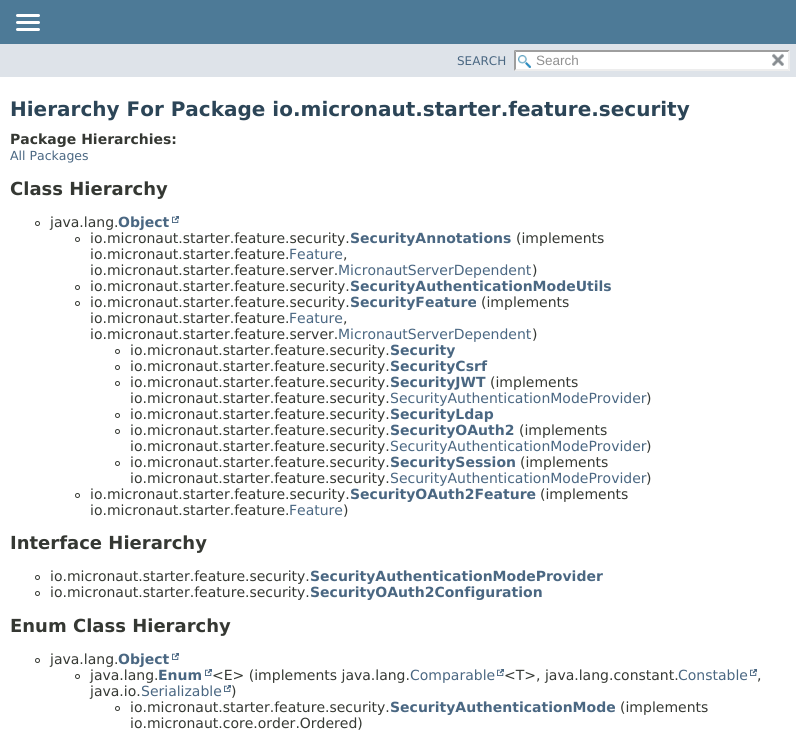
#include <cairo.h>
#include <math.h>
#include <stddef.h>

static cairo_t *ctx;

static void use_color(int r, int g, int b) {
    cairo_set_source_rgb(ctx, r / 255.0, g / 255.0, b / 255.0);
}

static void round_rect(double x, double y, double w, double h, double r) {
    cairo_new_sub_path(ctx);
    cairo_arc(ctx, x + w - r, y + h - r, r, 0, M_PI / 2);
    cairo_arc(ctx, x + r, y + h - r, r, M_PI / 2, M_PI);
    cairo_arc(ctx, x + r, y + r, r, M_PI, 1.5 * M_PI);
    cairo_arc(ctx, x + w - r, y + r, r, 1.5 * M_PI, 2 * M_PI);
    cairo_close_path(ctx);
}

static void picture(const char *path, double x, double y, double w, double h) {
    cairo_surface_t *image = cairo_image_surface_create_from_png(path);
    cairo_save(ctx);
    cairo_set_source_surface(ctx, image, x, y);
    cairo_rectangle(ctx, x, y, w, h);
    cairo_fill(ctx);
    cairo_restore(ctx);
    cairo_surface_destroy(image);
}

int main(void) {
    cairo_surface_t *surface = cairo_image_surface_create(CAIRO_FORMAT_RGB24, 796, 737);
    ctx = cairo_create(surface);
    cairo_font_options_t *options = cairo_font_options_create();
    cairo_font_options_set_hint_metrics(options, CAIRO_HINT_METRICS_OFF);
    cairo_font_options_set_hint_style(options, CAIRO_HINT_STYLE_NONE);
    cairo_set_font_options(ctx, options);
    cairo_set_miter_limit(ctx, 4);
    use_color(255, 255, 255);
    cairo_paint(ctx);
    use_color(77, 122, 151);
    cairo_rectangle(ctx, 0, 0, 796, 44);
    cairo_fill(ctx);
    use_color(255, 255, 255);
    round_rect(16, 14, 24, 3, 1.5);
    cairo_fill(ctx);
    round_rect(16, 21, 24, 3, 1.5);
    cairo_fill(ctx);
    round_rect(16, 28, 24, 3, 1.5);
    cairo_fill(ctx);
    use_color(222, 227, 233);
    cairo_rectangle(ctx, 0, 44, 796, 33);
    cairo_fill(ctx);
    cairo_select_font_face(ctx, "DejaVu Sans", CAIRO_FONT_SLANT_NORMAL, CAIRO_FONT_WEIGHT_NORMAL);
    cairo_set_font_size(ctx, 12);
    use_color(74, 103, 130);
    cairo_move_to(ctx, 457, 65);
    cairo_show_text(ctx, "SEARCH");
    use_color(255, 255, 255);
    cairo_rectangle(ctx, 514, 50, 276, 21);
    cairo_fill(ctx);
    picture("img1.png", 518, 55, 13, 13);
    use_color(158, 158, 158);
    cairo_new_path(ctx);
    cairo_move_to(ctx, 514, 50);
    cairo_line_to(ctx, 790, 50);
    cairo_line_to(ctx, 788, 52);
    cairo_line_to(ctx, 516, 52);
    cairo_close_path(ctx);
    cairo_fill(ctx);
    use_color(237, 237, 237);
    cairo_new_path(ctx);
    cairo_move_to(ctx, 790, 50);
    cairo_line_to(ctx, 790, 71);
    cairo_line_to(ctx, 788, 69);
    cairo_line_to(ctx, 788, 52);
    cairo_close_path(ctx);
    cairo_fill(ctx);
    cairo_new_path(ctx);
    cairo_move_to(ctx, 790, 71);
    cairo_line_to(ctx, 514, 71);
    cairo_line_to(ctx, 516, 69);
    cairo_line_to(ctx, 788, 69);
    cairo_close_path(ctx);
    cairo_fill(ctx);
    use_color(158, 158, 158);
    cairo_new_path(ctx);
    cairo_move_to(ctx, 514, 71);
    cairo_line_to(ctx, 514, 50);
    cairo_line_to(ctx, 516, 52);
    cairo_line_to(ctx, 516, 69);
    cairo_close_path(ctx);
    cairo_fill(ctx);
    cairo_select_font_face(ctx, "Liberation Sans", CAIRO_FONT_SLANT_NORMAL, CAIRO_FONT_WEIGHT_NORMAL);
    cairo_set_font_size(ctx, 13.5);
    use_color(144, 144, 144);
    cairo_move_to(ctx, 536, 65);
    cairo_show_text(ctx, "Search");
    picture("img2.png", 772, 53, 12, 13);
    cairo_select_font_face(ctx, "DejaVu Sans", CAIRO_FONT_SLANT_NORMAL, CAIRO_FONT_WEIGHT_BOLD);
    cairo_set_font_size(ctx, 20);
    use_color(44, 69, 87);
    cairo_move_to(ctx, 10, 116);
    cairo_show_text(ctx, "Hierarchy For Package io.micronaut.starter.feature.security");
    cairo_set_font_size(ctx, 14);
    use_color(53, 56, 51);
    cairo_move_to(ctx, 10, 144);
    cairo_show_text(ctx, "Package Hierarchies:");
    cairo_select_font_face(ctx, "DejaVu Sans", CAIRO_FONT_SLANT_NORMAL, CAIRO_FONT_WEIGHT_NORMAL);
    cairo_set_font_size(ctx, 12.5);
    use_color(74, 103, 130);
    cairo_move_to(ctx, 10, 160);
    cairo_show_text(ctx, "All Packages");
    cairo_select_font_face(ctx, "DejaVu Sans", CAIRO_FONT_SLANT_NORMAL, CAIRO_FONT_WEIGHT_BOLD);
    cairo_set_font_size(ctx, 18);
    use_color(53, 56, 51);
    cairo_move_to(ctx, 10, 195);
    cairo_show_text(ctx, "Class Hierarchy");
    cairo_new_path(ctx);
    cairo_arc(ctx, 37.5, 223.5, 2, 0, 2 * M_PI);
    cairo_set_line_width(ctx, 1);
    cairo_stroke(ctx);
    cairo_select_font_face(ctx, "DejaVu Sans", CAIRO_FONT_SLANT_NORMAL, CAIRO_FONT_WEIGHT_NORMAL);
    cairo_set_font_size(ctx, 14);
    cairo_move_to(ctx, 50, 227);
    cairo_show_text(ctx, "java.lang.");
    cairo_select_font_face(ctx, "DejaVu Sans", CAIRO_FONT_SLANT_NORMAL, CAIRO_FONT_WEIGHT_BOLD);
    use_color(74, 103, 130);
    cairo_move_to(ctx, 118, 227);
    cairo_show_text(ctx, "Object");
    picture("img3.png", 172, 216, 7, 7);
    cairo_arc(ctx, 77.5, 239.5, 2, 0, 2 * M_PI);
    use_color(53, 56, 51);
    cairo_stroke(ctx);
    cairo_select_font_face(ctx, "DejaVu Sans", CAIRO_FONT_SLANT_NORMAL, CAIRO_FONT_WEIGHT_NORMAL);
    cairo_move_to(ctx, 90, 243);
    cairo_show_text(ctx, "io.micronaut.starter.feature.security.");
    cairo_select_font_face(ctx, "DejaVu Sans", CAIRO_FONT_SLANT_NORMAL, CAIRO_FONT_WEIGHT_BOLD);
    use_color(74, 103, 130);
    cairo_move_to(ctx, 350, 243);
    cairo_show_text(ctx, "SecurityAnnotations");
    cairo_select_font_face(ctx, "DejaVu Sans", CAIRO_FONT_SLANT_NORMAL, CAIRO_FONT_WEIGHT_NORMAL);
    use_color(53, 56, 51);
    cairo_move_to(ctx, 516, 243);
    cairo_show_text(ctx, "(implements");
    cairo_move_to(ctx, 90, 259);
    cairo_show_text(ctx, "io.micronaut.starter.feature.");
    use_color(74, 103, 130);
    cairo_move_to(ctx, 289, 259);
    cairo_show_text(ctx, "Feature");
    use_color(53, 56, 51);
    cairo_move_to(ctx, 343, 259);
    cairo_show_text(ctx, ",");
    cairo_move_to(ctx, 90, 275);
    cairo_show_text(ctx, "io.micronaut.starter.feature.server.");
    use_color(74, 103, 130);
    cairo_move_to(ctx, 338, 275);
    cairo_show_text(ctx, "MicronautServerDependent");
    use_color(53, 56, 51);
    cairo_move_to(ctx, 532, 275);
    cairo_show_text(ctx, ")");
    cairo_new_path(ctx);
    cairo_arc(ctx, 77.5, 287.5, 2, 0, 2 * M_PI);
    cairo_stroke(ctx);
    cairo_move_to(ctx, 90, 291);
    cairo_show_text(ctx, "io.micronaut.starter.feature.security.");
    cairo_select_font_face(ctx, "DejaVu Sans", CAIRO_FONT_SLANT_NORMAL, CAIRO_FONT_WEIGHT_BOLD);
    use_color(74, 103, 130);
    cairo_move_to(ctx, 350, 291);
    cairo_show_text(ctx, "SecurityAuthenticationModeUtils");
    cairo_new_path(ctx);
    cairo_arc(ctx, 77.5, 303.5, 2, 0, 2 * M_PI);
    use_color(53, 56, 51);
    cairo_stroke(ctx);
    cairo_select_font_face(ctx, "DejaVu Sans", CAIRO_FONT_SLANT_NORMAL, CAIRO_FONT_WEIGHT_NORMAL);
    cairo_move_to(ctx, 90, 307);
    cairo_show_text(ctx, "io.micronaut.starter.feature.security.");
    cairo_select_font_face(ctx, "DejaVu Sans", CAIRO_FONT_SLANT_NORMAL, CAIRO_FONT_WEIGHT_BOLD);
    use_color(74, 103, 130);
    cairo_move_to(ctx, 350, 307);
    cairo_show_text(ctx, "SecurityFeature");
    cairo_select_font_face(ctx, "DejaVu Sans", CAIRO_FONT_SLANT_NORMAL, CAIRO_FONT_WEIGHT_NORMAL);
    use_color(53, 56, 51);
    cairo_move_to(ctx, 481, 307);
    cairo_show_text(ctx, "(implements");
    cairo_move_to(ctx, 90, 323);
    cairo_show_text(ctx, "io.micronaut.starter.feature.");
    use_color(74, 103, 130);
    cairo_move_to(ctx, 289, 323);
    cairo_show_text(ctx, "Feature");
    use_color(53, 56, 51);
    cairo_move_to(ctx, 343, 323);
    cairo_show_text(ctx, ",");
    cairo_move_to(ctx, 90, 339);
    cairo_show_text(ctx, "io.micronaut.starter.feature.server.");
    use_color(74, 103, 130);
    cairo_move_to(ctx, 338, 339);
    cairo_show_text(ctx, "MicronautServerDependent");
    use_color(53, 56, 51);
    cairo_move_to(ctx, 532, 339);
    cairo_show_text(ctx, ")");
    cairo_new_path(ctx);
    cairo_arc(ctx, 117.5, 351.5, 2, 0, 2 * M_PI);
    cairo_stroke(ctx);
    cairo_move_to(ctx, 130, 355);
    cairo_show_text(ctx, "io.micronaut.starter.feature.security.");
    cairo_select_font_face(ctx, "DejaVu Sans", CAIRO_FONT_SLANT_NORMAL, CAIRO_FONT_WEIGHT_BOLD);
    use_color(74, 103, 130);
    cairo_move_to(ctx, 390, 355);
    cairo_show_text(ctx, "Security");
    cairo_new_path(ctx);
    cairo_arc(ctx, 117.5, 367.5, 2, 0, 2 * M_PI);
    use_color(53, 56, 51);
    cairo_stroke(ctx);
    cairo_select_font_face(ctx, "DejaVu Sans", CAIRO_FONT_SLANT_NORMAL, CAIRO_FONT_WEIGHT_NORMAL);
    cairo_move_to(ctx, 130, 371);
    cairo_show_text(ctx, "io.micronaut.starter.feature.security.");
    cairo_select_font_face(ctx, "DejaVu Sans", CAIRO_FONT_SLANT_NORMAL, CAIRO_FONT_WEIGHT_BOLD);
    use_color(74, 103, 130);
    cairo_move_to(ctx, 390, 371);
    cairo_show_text(ctx, "SecurityCsrf");
    cairo_new_path(ctx);
    cairo_arc(ctx, 117.5, 383.5, 2, 0, 2 * M_PI);
    use_color(53, 56, 51);
    cairo_stroke(ctx);
    cairo_select_font_face(ctx, "DejaVu Sans", CAIRO_FONT_SLANT_NORMAL, CAIRO_FONT_WEIGHT_NORMAL);
    cairo_move_to(ctx, 130, 387);
    cairo_show_text(ctx, "io.micronaut.starter.feature.security.");
    cairo_select_font_face(ctx, "DejaVu Sans", CAIRO_FONT_SLANT_NORMAL, CAIRO_FONT_WEIGHT_BOLD);
    use_color(74, 103, 130);
    cairo_move_to(ctx, 390, 387);
    cairo_show_text(ctx, "SecurityJWT");
    cairo_select_font_face(ctx, "DejaVu Sans", CAIRO_FONT_SLANT_NORMAL, CAIRO_FONT_WEIGHT_NORMAL);
    use_color(53, 56, 51);
    cairo_move_to(ctx, 490, 387);
    cairo_show_text(ctx, "(implements");
    cairo_move_to(ctx, 130, 403);
    cairo_show_text(ctx, "io.micronaut.starter.feature.security.");
    use_color(74, 103, 130);
    cairo_move_to(ctx, 390, 403);
    cairo_show_text(ctx, "SecurityAuthenticationModeProvider");
    use_color(53, 56, 51);
    cairo_move_to(ctx, 646, 403);
    cairo_show_text(ctx, ")");
    cairo_new_path(ctx);
    cairo_arc(ctx, 117.5, 415.5, 2, 0, 2 * M_PI);
    cairo_stroke(ctx);
    cairo_move_to(ctx, 130, 419);
    cairo_show_text(ctx, "io.micronaut.starter.feature.security.");
    cairo_select_font_face(ctx, "DejaVu Sans", CAIRO_FONT_SLANT_NORMAL, CAIRO_FONT_WEIGHT_BOLD);
    use_color(74, 103, 130);
    cairo_move_to(ctx, 390, 419);
    cairo_show_text(ctx, "SecurityLdap");
    cairo_new_path(ctx);
    cairo_arc(ctx, 117.5, 431.5, 2, 0, 2 * M_PI);
    use_color(53, 56, 51);
    cairo_stroke(ctx);
    cairo_select_font_face(ctx, "DejaVu Sans", CAIRO_FONT_SLANT_NORMAL, CAIRO_FONT_WEIGHT_NORMAL);
    cairo_move_to(ctx, 130, 435);
    cairo_show_text(ctx, "io.micronaut.starter.feature.security.");
    cairo_select_font_face(ctx, "DejaVu Sans", CAIRO_FONT_SLANT_NORMAL, CAIRO_FONT_WEIGHT_BOLD);
    use_color(74, 103, 130);
    cairo_move_to(ctx, 390, 435);
    cairo_show_text(ctx, "SecurityOAuth2");
    cairo_select_font_face(ctx, "DejaVu Sans", CAIRO_FONT_SLANT_NORMAL, CAIRO_FONT_WEIGHT_NORMAL);
    use_color(53, 56, 51);
    cairo_move_to(ctx, 519, 435);
    cairo_show_text(ctx, "(implements");
    cairo_move_to(ctx, 130, 451);
    cairo_show_text(ctx, "io.micronaut.starter.feature.security.");
    use_color(74, 103, 130);
    cairo_move_to(ctx, 390, 451);
    cairo_show_text(ctx, "SecurityAuthenticationModeProvider");
    use_color(53, 56, 51);
    cairo_move_to(ctx, 646, 451);
    cairo_show_text(ctx, ")");
    cairo_new_path(ctx);
    cairo_arc(ctx, 117.5, 463.5, 2, 0, 2 * M_PI);
    cairo_stroke(ctx);
    cairo_move_to(ctx, 130, 467);
    cairo_show_text(ctx, "io.micronaut.starter.feature.security.");
    cairo_select_font_face(ctx, "DejaVu Sans", CAIRO_FONT_SLANT_NORMAL, CAIRO_FONT_WEIGHT_BOLD);
    use_color(74, 103, 130);
    cairo_move_to(ctx, 390, 467);
    cairo_show_text(ctx, "SecuritySession");
    cairo_select_font_face(ctx, "DejaVu Sans", CAIRO_FONT_SLANT_NORMAL, CAIRO_FONT_WEIGHT_NORMAL);
    use_color(53, 56, 51);
    cairo_move_to(ctx, 520, 467);
    cairo_show_text(ctx, "(implements");
    cairo_move_to(ctx, 130, 483);
    cairo_show_text(ctx, "io.micronaut.starter.feature.security.");
    use_color(74, 103, 130);
    cairo_move_to(ctx, 390, 483);
    cairo_show_text(ctx, "SecurityAuthenticationModeProvider");
    use_color(53, 56, 51);
    cairo_move_to(ctx, 646, 483);
    cairo_show_text(ctx, ")");
    cairo_new_path(ctx);
    cairo_arc(ctx, 77.5, 495.5, 2, 0, 2 * M_PI);
    cairo_stroke(ctx);
    cairo_move_to(ctx, 90, 499);
    cairo_show_text(ctx, "io.micronaut.starter.feature.security.");
    cairo_select_font_face(ctx, "DejaVu Sans", CAIRO_FONT_SLANT_NORMAL, CAIRO_FONT_WEIGHT_BOLD);
    use_color(74, 103, 130);
    cairo_move_to(ctx, 350, 499);
    cairo_show_text(ctx, "SecurityOAuth2Feature");
    cairo_select_font_face(ctx, "DejaVu Sans", CAIRO_FONT_SLANT_NORMAL, CAIRO_FONT_WEIGHT_NORMAL);
    use_color(53, 56, 51);
    cairo_move_to(ctx, 540, 499);
    cairo_show_text(ctx, "(implements");
    cairo_move_to(ctx, 90, 515);
    cairo_show_text(ctx, "io.micronaut.starter.feature.");
    use_color(74, 103, 130);
    cairo_move_to(ctx, 289, 515);
    cairo_show_text(ctx, "Feature");
    use_color(53, 56, 51);
    cairo_move_to(ctx, 343, 515);
    cairo_show_text(ctx, ")");
    cairo_select_font_face(ctx, "DejaVu Sans", CAIRO_FONT_SLANT_NORMAL, CAIRO_FONT_WEIGHT_BOLD);
    cairo_set_font_size(ctx, 18);
    cairo_move_to(ctx, 10, 549);
    cairo_show_text(ctx, "Interface Hierarchy");
    cairo_new_path(ctx);
    cairo_arc(ctx, 37.5, 577.5, 2, 0, 2 * M_PI);
    cairo_stroke(ctx);
    cairo_select_font_face(ctx, "DejaVu Sans", CAIRO_FONT_SLANT_NORMAL, CAIRO_FONT_WEIGHT_NORMAL);
    cairo_set_font_size(ctx, 14);
    cairo_move_to(ctx, 50, 581);
    cairo_show_text(ctx, "io.micronaut.starter.feature.security.");
    cairo_select_font_face(ctx, "DejaVu Sans", CAIRO_FONT_SLANT_NORMAL, CAIRO_FONT_WEIGHT_BOLD);
    use_color(74, 103, 130);
    cairo_move_to(ctx, 310, 581);
    cairo_show_text(ctx, "SecurityAuthenticationModeProvider");
    cairo_new_path(ctx);
    cairo_arc(ctx, 37.5, 593.5, 2, 0, 2 * M_PI);
    use_color(53, 56, 51);
    cairo_stroke(ctx);
    cairo_select_font_face(ctx, "DejaVu Sans", CAIRO_FONT_SLANT_NORMAL, CAIRO_FONT_WEIGHT_NORMAL);
    cairo_move_to(ctx, 50, 597);
    cairo_show_text(ctx, "io.micronaut.starter.feature.security.");
    cairo_select_font_face(ctx, "DejaVu Sans", CAIRO_FONT_SLANT_NORMAL, CAIRO_FONT_WEIGHT_BOLD);
    use_color(74, 103, 130);
    cairo_move_to(ctx, 310, 597);
    cairo_show_text(ctx, "SecurityOAuth2Configuration");
    cairo_set_font_size(ctx, 18);
    use_color(53, 56, 51);
    cairo_move_to(ctx, 10, 632);
    cairo_show_text(ctx, "Enum Class Hierarchy");
    cairo_new_path(ctx);
    cairo_arc(ctx, 37.5, 660.5, 2, 0, 2 * M_PI);
    cairo_stroke(ctx);
    cairo_select_font_face(ctx, "DejaVu Sans", CAIRO_FONT_SLANT_NORMAL, CAIRO_FONT_WEIGHT_NORMAL);
    cairo_set_font_size(ctx, 14);
    cairo_move_to(ctx, 50, 664);
    cairo_show_text(ctx, "java.lang.");
    cairo_select_font_face(ctx, "DejaVu Sans", CAIRO_FONT_SLANT_NORMAL, CAIRO_FONT_WEIGHT_BOLD);
    use_color(74, 103, 130);
    cairo_move_to(ctx, 118, 664);
    cairo_show_text(ctx, "Object");
    picture("img3.png", 172, 653, 7, 7);
    cairo_arc(ctx, 77.5, 676.5, 2, 0, 2 * M_PI);
    use_color(53, 56, 51);
    cairo_stroke(ctx);
    cairo_select_font_face(ctx, "DejaVu Sans", CAIRO_FONT_SLANT_NORMAL, CAIRO_FONT_WEIGHT_NORMAL);
    cairo_move_to(ctx, 90, 680);
    cairo_show_text(ctx, "java.lang.");
    cairo_select_font_face(ctx, "DejaVu Sans", CAIRO_FONT_SLANT_NORMAL, CAIRO_FONT_WEIGHT_BOLD);
    use_color(74, 103, 130);
    cairo_move_to(ctx, 158, 680);
    cairo_show_text(ctx, "Enum");
    picture("img3.png", 205, 669, 7, 7);
    cairo_select_font_face(ctx, "DejaVu Sans", CAIRO_FONT_SLANT_NORMAL, CAIRO_FONT_WEIGHT_NORMAL);
    use_color(53, 56, 51);
    cairo_move_to(ctx, 212, 680);
    cairo_show_text(ctx, "<E> (implements java.lang.");
    use_color(74, 103, 130);
    cairo_move_to(ctx, 410, 680);
    cairo_show_text(ctx, "Comparable");
    picture("img3.png", 497, 669, 7, 7);
    use_color(53, 56, 51);
    cairo_move_to(ctx, 504, 680);
    cairo_show_text(ctx, "<T>, java.lang.constant.");
    use_color(74, 103, 130);
    cairo_move_to(ctx, 678, 680);
    cairo_show_text(ctx, "Constable");
    picture("img3.png", 750, 669, 7, 7);
    use_color(53, 56, 51);
    cairo_move_to(ctx, 757, 680);
    cairo_show_text(ctx, ",");
    cairo_move_to(ctx, 90, 696);
    cairo_show_text(ctx, "java.io.");
    use_color(74, 103, 130);
    cairo_move_to(ctx, 141, 696);
    cairo_show_text(ctx, "Serializable");
    picture("img3.png", 224, 685, 7, 7);
    use_color(53, 56, 51);
    cairo_move_to(ctx, 231, 696);
    cairo_show_text(ctx, ")");
    cairo_new_path(ctx);
    cairo_arc(ctx, 117.5, 708.5, 2, 0, 2 * M_PI);
    cairo_stroke(ctx);
    cairo_move_to(ctx, 130, 712);
    cairo_show_text(ctx, "io.micronaut.starter.feature.security.");
    cairo_select_font_face(ctx, "DejaVu Sans", CAIRO_FONT_SLANT_NORMAL, CAIRO_FONT_WEIGHT_BOLD);
    use_color(74, 103, 130);
    cairo_move_to(ctx, 390, 712);
    cairo_show_text(ctx, "SecurityAuthenticationMode");
    cairo_select_font_face(ctx, "DejaVu Sans", CAIRO_FONT_SLANT_NORMAL, CAIRO_FONT_WEIGHT_NORMAL);
    use_color(53, 56, 51);
    cairo_move_to(ctx, 620, 712);
    cairo_show_text(ctx, "(implements");
    cairo_move_to(ctx, 130, 728);
    cairo_show_text(ctx, "io.micronaut.core.order.Ordered)");
    cairo_surface_write_to_png(surface, "result.png");
    cairo_font_options_destroy(options);
    cairo_destroy(ctx);
    cairo_surface_destroy(surface);
    return 0;
}
